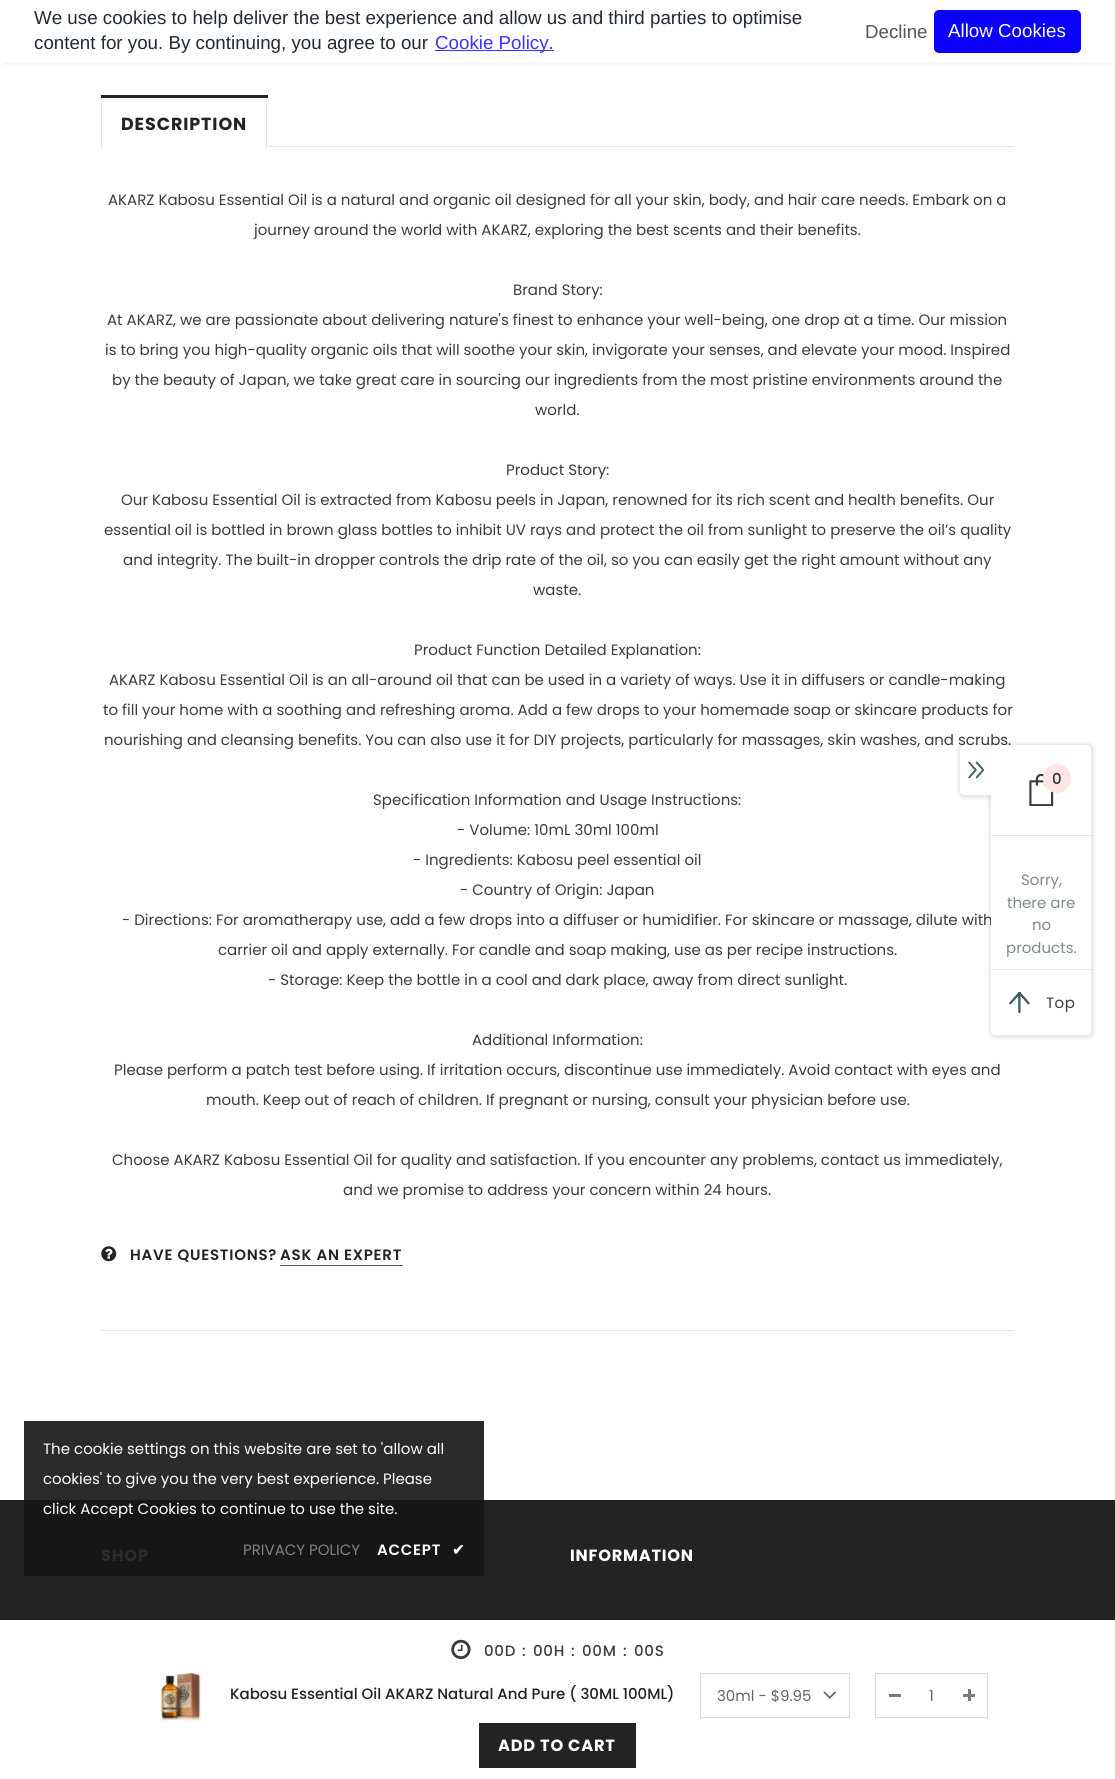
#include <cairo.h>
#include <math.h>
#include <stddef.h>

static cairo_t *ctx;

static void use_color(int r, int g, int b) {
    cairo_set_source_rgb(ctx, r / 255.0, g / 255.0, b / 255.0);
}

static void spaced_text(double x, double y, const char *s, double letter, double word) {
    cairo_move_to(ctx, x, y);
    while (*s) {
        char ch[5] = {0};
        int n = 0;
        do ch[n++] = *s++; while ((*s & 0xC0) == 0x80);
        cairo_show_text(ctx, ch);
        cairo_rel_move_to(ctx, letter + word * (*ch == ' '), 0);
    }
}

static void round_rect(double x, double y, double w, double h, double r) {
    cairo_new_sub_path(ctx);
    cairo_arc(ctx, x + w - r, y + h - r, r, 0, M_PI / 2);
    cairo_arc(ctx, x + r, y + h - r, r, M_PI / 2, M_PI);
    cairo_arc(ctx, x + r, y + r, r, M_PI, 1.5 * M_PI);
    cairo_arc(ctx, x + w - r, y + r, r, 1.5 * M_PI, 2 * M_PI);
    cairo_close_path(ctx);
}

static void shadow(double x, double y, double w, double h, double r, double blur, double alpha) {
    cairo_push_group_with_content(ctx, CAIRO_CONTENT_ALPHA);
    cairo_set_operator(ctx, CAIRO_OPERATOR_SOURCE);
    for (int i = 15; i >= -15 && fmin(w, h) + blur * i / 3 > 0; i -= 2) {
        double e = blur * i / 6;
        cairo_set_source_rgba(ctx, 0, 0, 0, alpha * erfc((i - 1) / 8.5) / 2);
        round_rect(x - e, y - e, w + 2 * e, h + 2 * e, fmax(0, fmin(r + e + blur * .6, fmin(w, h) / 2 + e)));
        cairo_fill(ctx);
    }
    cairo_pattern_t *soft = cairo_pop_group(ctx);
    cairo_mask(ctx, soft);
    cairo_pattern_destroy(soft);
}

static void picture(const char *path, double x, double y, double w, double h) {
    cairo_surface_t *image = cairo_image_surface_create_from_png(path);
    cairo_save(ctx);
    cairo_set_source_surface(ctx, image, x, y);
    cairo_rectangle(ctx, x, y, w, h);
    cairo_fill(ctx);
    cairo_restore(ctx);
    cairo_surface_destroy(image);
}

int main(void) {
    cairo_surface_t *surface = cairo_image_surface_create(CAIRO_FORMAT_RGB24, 1115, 1779);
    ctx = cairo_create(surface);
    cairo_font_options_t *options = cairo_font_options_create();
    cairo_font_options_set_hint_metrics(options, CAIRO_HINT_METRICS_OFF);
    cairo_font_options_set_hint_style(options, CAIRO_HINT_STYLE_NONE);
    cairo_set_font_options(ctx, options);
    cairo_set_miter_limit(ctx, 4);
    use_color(255, 255, 255);
    cairo_paint(ctx);
    use_color(43, 43, 43);
    cairo_rectangle(ctx, 24, 1421, 460, 79);
    cairo_fill(ctx);
    use_color(0, 0, 0);
    shadow(4, 8, 1107, 55, 0, 2, 0.12);
    use_color(255, 255, 255);
    cairo_rectangle(ctx, 1, 5, 1113, 58);
    cairo_fill(ctx);
    cairo_select_font_face(ctx, "Liberation Sans", CAIRO_FONT_SLANT_NORMAL, CAIRO_FONT_WEIGHT_NORMAL);
    cairo_set_font_size(ctx, 18.75);
    use_color(33, 43, 54);
    cairo_move_to(ctx, 34, 24);
    cairo_show_text(ctx, "We use cookies to help deliver the best experience and allow us and third parties to optimise");
    cairo_move_to(ctx, 34, 49);
    cairo_show_text(ctx, "content for you. By continuing, you agree to our");
    use_color(59, 51, 253);
    cairo_rectangle(ctx, 435, 50, 119, 1);
    cairo_fill(ctx);
    cairo_move_to(ctx, 435, 49);
    cairo_show_text(ctx, "Cookie Policy.");
    use_color(87, 87, 87);
    cairo_move_to(ctx, 865, 38);
    cairo_show_text(ctx, "Decline");
    use_color(10, 0, 252);
    round_rect(934, 10, 147, 43, 5);
    cairo_fill(ctx);
    use_color(255, 255, 255);
    cairo_move_to(ctx, 948, 37);
    cairo_show_text(ctx, "Allow Cookies");
    use_color(230, 230, 230);
    cairo_rectangle(ctx, 268, 146, 746, 1);
    cairo_fill(ctx);
    cairo_rectangle(ctx, 266, 95, 1, 53);
    cairo_fill(ctx);
    cairo_rectangle(ctx, 101, 95, 1, 53);
    cairo_fill(ctx);
    use_color(35, 35, 35);
    cairo_rectangle(ctx, 101, 95, 167, 3);
    cairo_fill(ctx);
    cairo_select_font_face(ctx, "Poppins", CAIRO_FONT_SLANT_NORMAL, CAIRO_FONT_WEIGHT_BOLD);
    cairo_set_font_size(ctx, 17.5);
    spaced_text(121, 130, "DESCRIPTION", 0.9, 0);
    cairo_select_font_face(ctx, "Poppins", CAIRO_FONT_SLANT_NORMAL, CAIRO_FONT_WEIGHT_NORMAL);
    cairo_set_font_size(ctx, 15);
    use_color(60, 60, 60);
    cairo_move_to(ctx, 108, 205);
    cairo_show_text(ctx, "AKARZ Kabosu Essential Oil is a natural and organic oil designed for all your skin, body, and hair care needs. Embark on a");
    cairo_move_to(ctx, 254, 235);
    cairo_show_text(ctx, "journey around the world with AKARZ, exploring the best scents and their benefits.");
    cairo_move_to(ctx, 513, 295);
    cairo_show_text(ctx, "Brand Story:");
    cairo_move_to(ctx, 107, 325);
    cairo_show_text(ctx, "At AKARZ, we are passionate about delivering nature's finest to enhance your well-being, one drop at a time. Our mission");
    cairo_move_to(ctx, 105, 355);
    cairo_show_text(ctx, "is to bring you high-quality organic oils that will soothe your skin, invigorate your senses, and elevate your mood. Inspired");
    cairo_move_to(ctx, 112, 385);
    cairo_show_text(ctx, "by the beauty of Japan, we take great care in sourcing our ingredients from the most pristine environments around the");
    cairo_move_to(ctx, 535, 415);
    cairo_show_text(ctx, "world.");
    cairo_move_to(ctx, 506, 475);
    cairo_show_text(ctx, "Product Story:");
    cairo_move_to(ctx, 121, 505);
    cairo_show_text(ctx, "Our Kabosu Essential Oil is extracted from Kabosu peels in Japan, renowned for its rich scent and health benefits. Our");
    cairo_move_to(ctx, 104, 535);
    cairo_show_text(ctx, "essential oil is bottled in brown glass bottles to inhibit UV rays and protect the oil from sunlight to preserve the oil’s quality");
    cairo_move_to(ctx, 123, 565);
    cairo_show_text(ctx, "and integrity. The built-in dropper controls the drip rate of the oil, so you can easily get the right amount without any");
    cairo_move_to(ctx, 533, 595);
    cairo_show_text(ctx, "waste.");
    cairo_move_to(ctx, 414, 655);
    cairo_show_text(ctx, "Product Function Detailed Explanation:");
    cairo_move_to(ctx, 109, 685);
    cairo_show_text(ctx, "AKARZ Kabosu Essential Oil is an all-around oil that can be used in a variety of ways. Use it in diffusers or candle-making");
    cairo_move_to(ctx, 103, 715);
    cairo_show_text(ctx, "to fill your home with a soothing and refreshing aroma. Add a few drops to your homemade soap or skincare products for");
    cairo_move_to(ctx, 104, 745);
    cairo_show_text(ctx, "nourishing and cleansing benefits. You can also use it for DIY projects, particularly for massages, skin washes, and scrubs.");
    cairo_move_to(ctx, 373, 805);
    cairo_show_text(ctx, "Specification Information and Usage Instructions:");
    cairo_move_to(ctx, 457, 835);
    cairo_show_text(ctx, "- Volume: 10mL 30ml 100ml");
    cairo_move_to(ctx, 413, 865);
    cairo_show_text(ctx, "- Ingredients: Kabosu peel essential oil");
    cairo_move_to(ctx, 460, 895);
    cairo_show_text(ctx, "- Country of Origin: Japan");
    cairo_move_to(ctx, 122, 925);
    cairo_show_text(ctx, "- Directions: For aromatherapy use, add a few drops into a diffuser or humidifier. For skincare or massage, dilute with");
    cairo_move_to(ctx, 218, 955);
    cairo_show_text(ctx, "carrier oil and apply externally. For candle and soap making, use as per recipe instructions.");
    cairo_move_to(ctx, 268, 985);
    cairo_show_text(ctx, "- Storage: Keep the bottle in a cool and dark place, away from direct sunlight.");
    cairo_move_to(ctx, 472, 1045);
    cairo_show_text(ctx, "Additional Information:");
    cairo_move_to(ctx, 114, 1075);
    cairo_show_text(ctx, "Please perform a patch test before using. If irritation occurs, discontinue use immediately. Avoid contact with eyes and");
    cairo_move_to(ctx, 206, 1105);
    cairo_show_text(ctx, "mouth. Keep out of reach of children. If pregnant or nursing, consult your physician before use.");
    cairo_move_to(ctx, 112, 1165);
    cairo_show_text(ctx, "Choose AKARZ Kabosu Essential Oil for quality and satisfaction. If you encounter any problems, contact us immediately,");
    cairo_move_to(ctx, 343, 1195);
    cairo_show_text(ctx, "and we promise to address your concern within 24 hours.");
    picture("img1.png", 101, 1246, 16, 16);
    cairo_select_font_face(ctx, "Poppins SemiBold", CAIRO_FONT_SLANT_NORMAL, CAIRO_FONT_WEIGHT_NORMAL);
    use_color(35, 35, 35);
    spaced_text(130, 1260, "HAVE QUESTIONS?", 0.75, 0);
    spaced_text(280, 1260, "ASK AN EXPERT", 0.75, 0);
    use_color(90, 90, 90);
    cairo_rectangle(ctx, 280, 1265, 123, 1);
    cairo_fill(ctx);
    use_color(230, 230, 230);
    cairo_rectangle(ctx, 101, 1330, 913, 1);
    cairo_fill(ctx);
    cairo_select_font_face(ctx, "Poppins", CAIRO_FONT_SLANT_NORMAL, CAIRO_FONT_WEIGHT_NORMAL);
    use_color(255, 255, 255);
    cairo_move_to(ctx, 43, 1454);
    cairo_show_text(ctx, "The cookie settings on this website are set to 'allow all");
    cairo_move_to(ctx, 43, 1484);
    cairo_show_text(ctx, "cookies' to give you the very best experience. Please");
    use_color(35, 35, 35);
    cairo_rectangle(ctx, 0, 1500, 1115, 120);
    cairo_fill(ctx);
    use_color(22, 22, 22);
    cairo_rectangle(ctx, 24, 1500, 460, 76);
    cairo_fill(ctx);
    use_color(255, 255, 255);
    cairo_move_to(ctx, 43, 1514);
    cairo_show_text(ctx, "click Accept Cookies to continue to use the site.");
    use_color(129, 129, 129);
    cairo_move_to(ctx, 243, 1555);
    cairo_show_text(ctx, "PRIVACY POLICY");
    cairo_select_font_face(ctx, "Poppins SemiBold", CAIRO_FONT_SLANT_NORMAL, CAIRO_FONT_WEIGHT_NORMAL);
    use_color(255, 255, 255);
    spaced_text(377, 1555, "ACCEPT", 0.75, 0);
    cairo_select_font_face(ctx, "DejaVu Sans", CAIRO_FONT_SLANT_NORMAL, CAIRO_FONT_WEIGHT_BOLD);
    spaced_text(452, 1555, "✔", 0.75, 0);
    picture("img2.png", 451, 1639, 20, 21);
    cairo_select_font_face(ctx, "Poppins Medium", CAIRO_FONT_SLANT_NORMAL, CAIRO_FONT_WEIGHT_NORMAL);
    use_color(60, 60, 60);
    spaced_text(484, 1656, "00D", 0.75, 0);
    spaced_text(522, 1656, ":", 0.75, 0);
    spaced_text(533, 1656, "00H", 0.75, 0);
    spaced_text(571, 1656, ":", 0.75, 0);
    spaced_text(582, 1656, "00M", 0.75, 0);
    spaced_text(623, 1656, ":", 0.75, 0);
    spaced_text(634, 1656, "00S", 0.75, 0);
    picture("img3.png", 161, 1672, 40, 49);
    use_color(35, 35, 35);
    cairo_move_to(ctx, 230, 1699);
    cairo_show_text(ctx, "Kabosu Essential Oil AKARZ Natural And Pure ( 30ML 100ML)");
    cairo_rectangle(ctx, 700.5, 1673.5, 149, 44);
    use_color(218, 218, 218);
    cairo_set_line_width(ctx, 1);
    cairo_stroke(ctx);
    cairo_select_font_face(ctx, "Poppins", CAIRO_FONT_SLANT_NORMAL, CAIRO_FONT_WEIGHT_NORMAL);
    use_color(100, 100, 100);
    cairo_move_to(ctx, 717, 1701);
    cairo_show_text(ctx, "30ml - $9.95");
    picture("img4.png", 823, 1691, 13, 8);
    cairo_rectangle(ctx, 875.5, 1673.5, 112, 44);
    use_color(218, 218, 218);
    cairo_stroke(ctx);
    use_color(123, 123, 123);
    cairo_rectangle(ctx, 889, 1694, 12, 3);
    cairo_fill(ctx);
    use_color(100, 100, 100);
    cairo_move_to(ctx, 929, 1701);
    cairo_show_text(ctx, "1");
    use_color(123, 123, 123);
    cairo_rectangle(ctx, 963, 1694, 12, 3);
    cairo_fill(ctx);
    cairo_rectangle(ctx, 968, 1689, 3, 12);
    cairo_fill(ctx);
    use_color(35, 35, 35);
    cairo_rectangle(ctx, 479, 1723, 157, 45);
    cairo_fill(ctx);
    cairo_select_font_face(ctx, "Poppins", CAIRO_FONT_SLANT_NORMAL, CAIRO_FONT_WEIGHT_BOLD);
    cairo_set_font_size(ctx, 16.25);
    use_color(255, 255, 255);
    spaced_text(498, 1751, "ADD TO CART", 0.75, 0);
    use_color(43, 43, 43);
    spaced_text(101, 1561, "SHOP", 0.75, 0);
    use_color(255, 255, 255);
    spaced_text(570, 1561, "INFORMATION", 0.75, 0);
    use_color(0, 0, 0);
    shadow(989, 743, 105, 295, 6, 2, 0.1);
    use_color(255, 255, 255);
    cairo_new_path(ctx);
    cairo_move_to(ctx, 991, 745);
    cairo_line_to(ctx, 1087, 745);
    cairo_curve_to(ctx, 1089, 745, 1091, 747, 1091, 749);
    cairo_line_to(ctx, 1091, 1031);
    cairo_curve_to(ctx, 1091, 1033, 1089, 1035, 1087, 1035);
    cairo_line_to(ctx, 995, 1035);
    cairo_curve_to(ctx, 993, 1035, 991, 1033, 991, 1031);
    cairo_close_path(ctx);
    cairo_fill(ctx);
    use_color(0, 0, 0);
    shadow(958, 743, 37, 55, 6, 2, 0.1);
    use_color(255, 255, 255);
    cairo_new_path(ctx);
    cairo_move_to(ctx, 964, 745);
    cairo_line_to(ctx, 993, 745);
    cairo_line_to(ctx, 993, 795);
    cairo_line_to(ctx, 964, 795);
    cairo_curve_to(ctx, 962, 795, 960, 793, 960, 791);
    cairo_line_to(ctx, 960, 749);
    cairo_curve_to(ctx, 960, 747, 962, 745, 964, 745);
    cairo_close_path(ctx);
    cairo_fill(ctx);
    picture("img5.png", 968, 761, 16, 18);
    cairo_rectangle(ctx, 991, 745, 7, 55);
    cairo_fill(ctx);
    use_color(231, 231, 231);
    cairo_rectangle(ctx, 991, 835, 100, 1);
    cairo_fill(ctx);
    picture("img6.png", 1029, 774, 25, 32);
    use_color(255, 229, 229);
    round_rect(1043, 764, 28, 29, 14);
    cairo_fill(ctx);
    cairo_select_font_face(ctx, "Poppins Medium", CAIRO_FONT_SLANT_NORMAL, CAIRO_FONT_WEIGHT_NORMAL);
    cairo_set_font_size(ctx, 15);
    use_color(50, 50, 50);
    cairo_move_to(ctx, 1052, 784);
    cairo_show_text(ctx, "0");
    cairo_select_font_face(ctx, "Poppins", CAIRO_FONT_SLANT_NORMAL, CAIRO_FONT_WEIGHT_NORMAL);
    use_color(125, 139, 142);
    cairo_move_to(ctx, 1021, 885);
    cairo_show_text(ctx, "Sorry,");
    cairo_move_to(ctx, 1007, 908);
    cairo_show_text(ctx, "there are");
    cairo_move_to(ctx, 1032, 930);
    cairo_show_text(ctx, "no");
    cairo_move_to(ctx, 1006, 953);
    cairo_show_text(ctx, "products.");
    use_color(231, 231, 231);
    cairo_rectangle(ctx, 991, 969, 100, 1);
    cairo_fill(ctx);
    picture("img7.png", 1009, 991, 21, 23);
    use_color(60, 60, 60);
    spaced_text(1046, 1008, "Top", 0.5, 0);
    cairo_surface_write_to_png(surface, "result.png");
    cairo_font_options_destroy(options);
    cairo_destroy(ctx);
    cairo_surface_destroy(surface);
    return 0;
}
